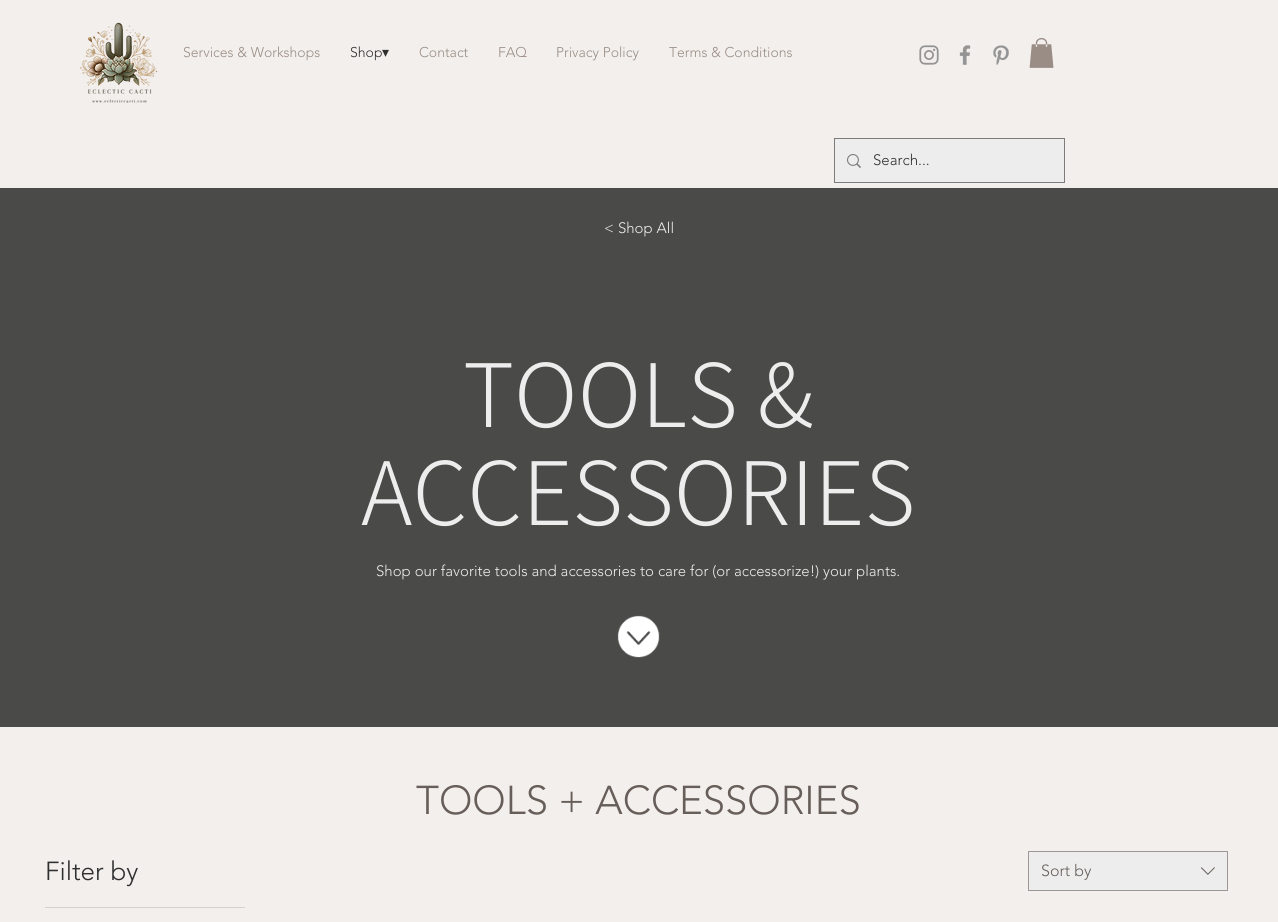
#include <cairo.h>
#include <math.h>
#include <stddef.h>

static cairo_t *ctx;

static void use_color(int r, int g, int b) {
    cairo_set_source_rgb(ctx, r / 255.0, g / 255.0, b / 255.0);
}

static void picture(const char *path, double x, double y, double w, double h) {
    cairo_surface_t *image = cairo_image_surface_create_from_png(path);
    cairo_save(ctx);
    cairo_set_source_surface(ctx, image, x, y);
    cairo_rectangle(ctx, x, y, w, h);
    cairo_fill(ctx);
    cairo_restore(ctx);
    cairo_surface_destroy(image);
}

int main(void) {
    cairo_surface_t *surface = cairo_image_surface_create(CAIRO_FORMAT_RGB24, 1278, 922);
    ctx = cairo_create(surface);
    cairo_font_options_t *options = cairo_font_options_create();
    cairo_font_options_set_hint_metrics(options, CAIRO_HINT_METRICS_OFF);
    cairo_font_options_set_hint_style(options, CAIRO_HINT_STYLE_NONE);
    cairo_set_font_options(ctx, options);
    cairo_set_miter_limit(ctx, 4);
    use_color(242, 239, 237);
    cairo_paint(ctx);
    picture("img1.png", 80, 22, 78, 81);
    cairo_select_font_face(ctx, "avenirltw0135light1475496 Light", CAIRO_FONT_SLANT_NORMAL, CAIRO_FONT_WEIGHT_NORMAL);
    cairo_set_font_size(ctx, 14);
    use_color(154, 141, 133);
    cairo_move_to(ctx, 183, 57);
    cairo_show_text(ctx, "Services & Workshops");
    use_color(47, 47, 48);
    cairo_move_to(ctx, 350, 57);
    cairo_show_text(ctx, "Shop");
    cairo_select_font_face(ctx, "DejaVu Sans", CAIRO_FONT_SLANT_NORMAL, CAIRO_FONT_WEIGHT_NORMAL);
    cairo_move_to(ctx, 382, 57);
    cairo_show_text(ctx, "▾");
    cairo_select_font_face(ctx, "avenirltw0135light1475496 Light", CAIRO_FONT_SLANT_NORMAL, CAIRO_FONT_WEIGHT_NORMAL);
    use_color(154, 141, 133);
    cairo_move_to(ctx, 419, 57);
    cairo_show_text(ctx, "Contact");
    cairo_move_to(ctx, 498, 57);
    cairo_show_text(ctx, "FAQ");
    cairo_move_to(ctx, 556, 57);
    cairo_show_text(ctx, "Privacy Policy");
    cairo_move_to(ctx, 669, 57);
    cairo_show_text(ctx, "Terms & Conditions");
    picture("img2.png", 919, 45, 20, 20);
    picture("img3.png", 959, 45, 12, 20);
    picture("img4.png", 993, 45, 16, 20);
    picture("img5.png", 1029, 38, 25, 30);
    cairo_rectangle(ctx, 834.5, 138.5, 230, 44);
    use_color(125, 124, 124);
    cairo_set_line_width(ctx, 1);
    cairo_stroke(ctx);
    use_color(237, 237, 238);
    cairo_rectangle(ctx, 835, 139, 229, 43);
    cairo_fill(ctx);
    picture("img6.png", 847, 154, 14, 14);
    cairo_set_font_size(ctx, 15);
    use_color(47, 47, 48);
    cairo_move_to(ctx, 873, 165);
    cairo_show_text(ctx, "Search...");
    use_color(74, 74, 73);
    cairo_rectangle(ctx, 0, 188, 1278, 539);
    cairo_fill(ctx);
    use_color(237, 237, 238);
    cairo_move_to(ctx, 604, 233);
    cairo_show_text(ctx, "< Shop All");
    cairo_select_font_face(ctx, "Assistant Light", CAIRO_FONT_SLANT_NORMAL, CAIRO_FONT_WEIGHT_NORMAL);
    cairo_set_font_size(ctx, 97);
    cairo_move_to(ctx, 463, 427);
    cairo_show_text(ctx, "TOOLS &");
    cairo_move_to(ctx, 361, 525);
    cairo_show_text(ctx, "ACCESSORIES");
    cairo_select_font_face(ctx, "avenirltw0135light1475496 Light", CAIRO_FONT_SLANT_NORMAL, CAIRO_FONT_WEIGHT_NORMAL);
    cairo_set_font_size(ctx, 15);
    cairo_move_to(ctx, 376, 576);
    cairo_show_text(ctx, "Shop our favorite tools and accessories to care for (or accessorize!) your plants.");
    picture("img7.png", 617, 615, 43, 43);
    cairo_set_font_size(ctx, 40);
    use_color(103, 94, 89);
    cairo_move_to(ctx, 416, 814);
    cairo_show_text(ctx, "TOOLS + ACCESSORIES");
    use_color(214, 210, 207);
    cairo_rectangle(ctx, 45, 907, 200, 1);
    cairo_fill(ctx);
    cairo_set_font_size(ctx, 26);
    use_color(47, 47, 48);
    cairo_move_to(ctx, 45, 880);
    cairo_show_text(ctx, "Filter by");
    use_color(237, 237, 238);
    cairo_rectangle(ctx, 1028.5, 851.5, 199, 39);
    cairo_fill_preserve(ctx);
    use_color(157, 151, 149);
    cairo_stroke(ctx);
    cairo_set_font_size(ctx, 16);
    use_color(103, 94, 89);
    cairo_move_to(ctx, 1041, 876);
    cairo_show_text(ctx, "Sort by");
    picture("img8.png", 1200, 867, 15, 8);
    cairo_surface_write_to_png(surface, "result.png");
    cairo_font_options_destroy(options);
    cairo_destroy(ctx);
    cairo_surface_destroy(surface);
    return 0;
}
